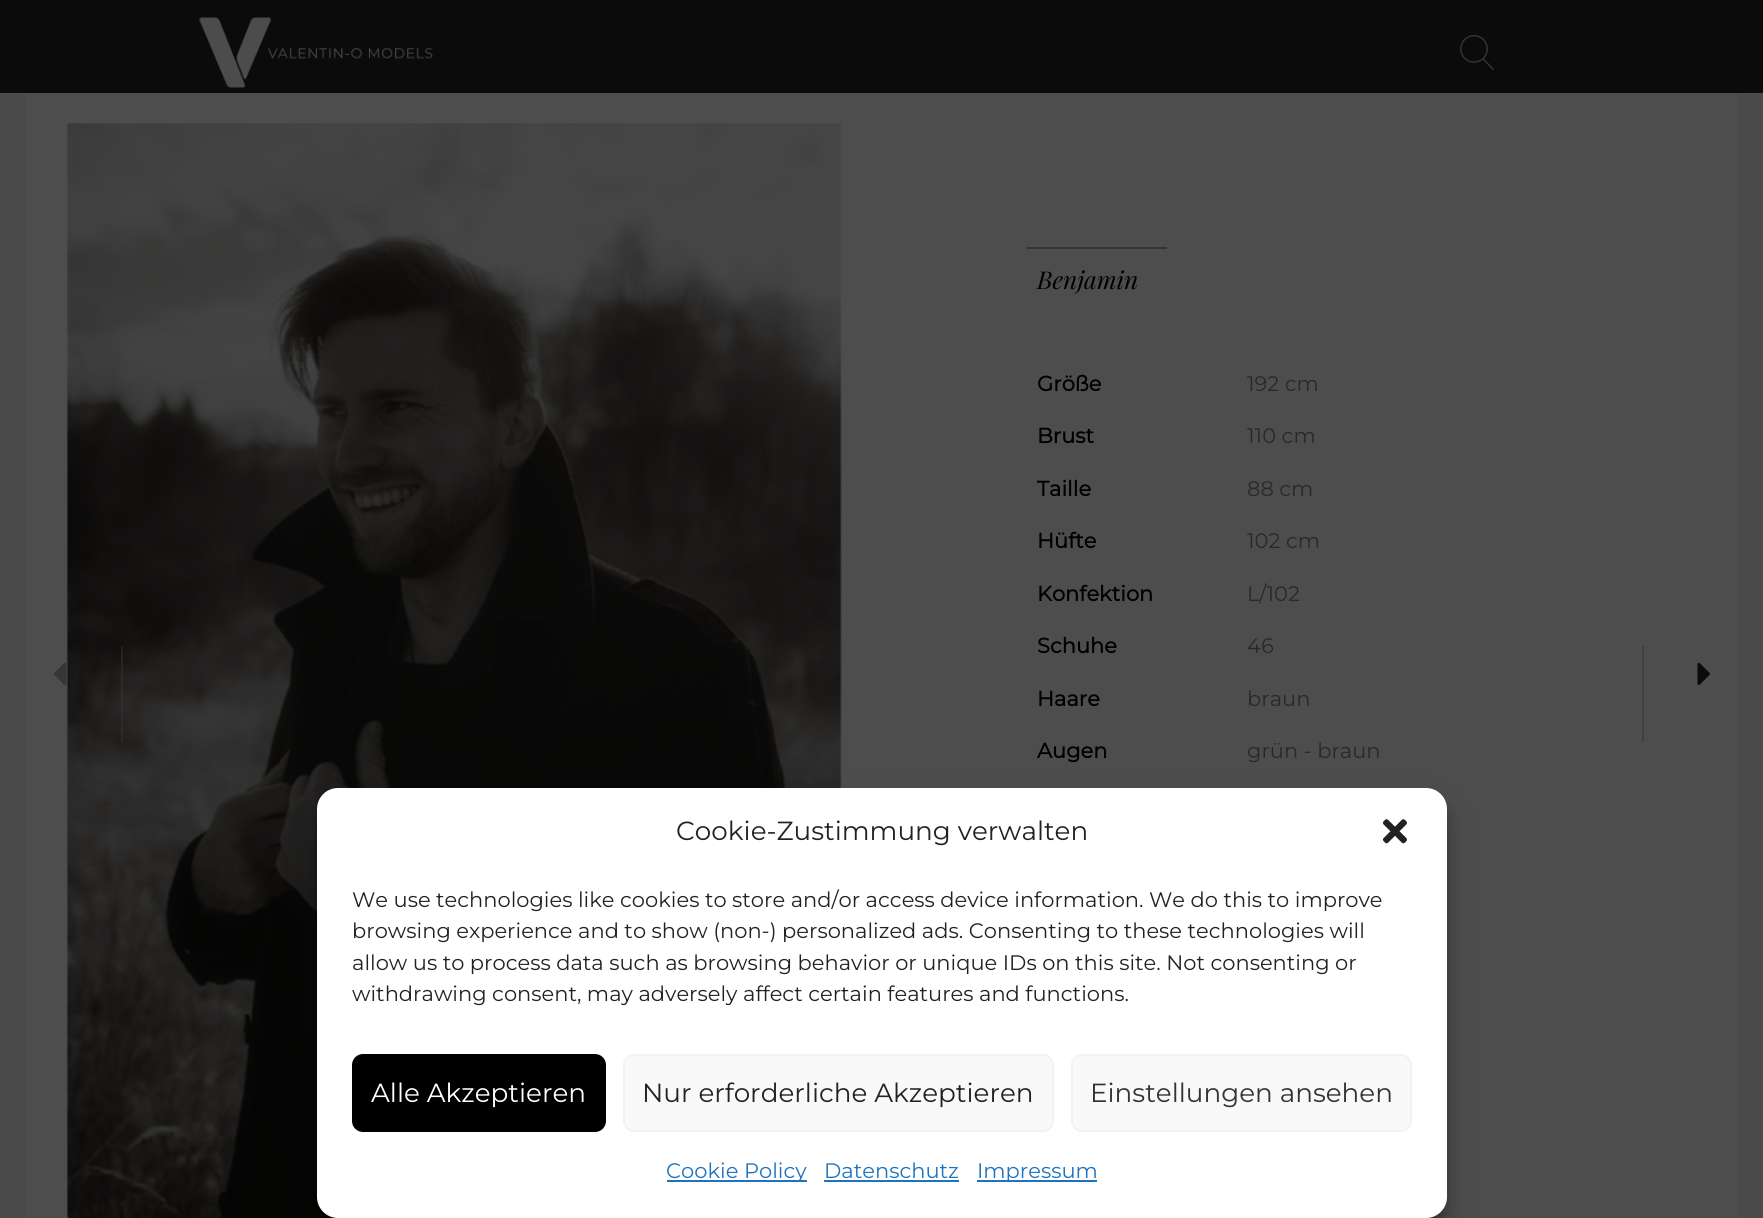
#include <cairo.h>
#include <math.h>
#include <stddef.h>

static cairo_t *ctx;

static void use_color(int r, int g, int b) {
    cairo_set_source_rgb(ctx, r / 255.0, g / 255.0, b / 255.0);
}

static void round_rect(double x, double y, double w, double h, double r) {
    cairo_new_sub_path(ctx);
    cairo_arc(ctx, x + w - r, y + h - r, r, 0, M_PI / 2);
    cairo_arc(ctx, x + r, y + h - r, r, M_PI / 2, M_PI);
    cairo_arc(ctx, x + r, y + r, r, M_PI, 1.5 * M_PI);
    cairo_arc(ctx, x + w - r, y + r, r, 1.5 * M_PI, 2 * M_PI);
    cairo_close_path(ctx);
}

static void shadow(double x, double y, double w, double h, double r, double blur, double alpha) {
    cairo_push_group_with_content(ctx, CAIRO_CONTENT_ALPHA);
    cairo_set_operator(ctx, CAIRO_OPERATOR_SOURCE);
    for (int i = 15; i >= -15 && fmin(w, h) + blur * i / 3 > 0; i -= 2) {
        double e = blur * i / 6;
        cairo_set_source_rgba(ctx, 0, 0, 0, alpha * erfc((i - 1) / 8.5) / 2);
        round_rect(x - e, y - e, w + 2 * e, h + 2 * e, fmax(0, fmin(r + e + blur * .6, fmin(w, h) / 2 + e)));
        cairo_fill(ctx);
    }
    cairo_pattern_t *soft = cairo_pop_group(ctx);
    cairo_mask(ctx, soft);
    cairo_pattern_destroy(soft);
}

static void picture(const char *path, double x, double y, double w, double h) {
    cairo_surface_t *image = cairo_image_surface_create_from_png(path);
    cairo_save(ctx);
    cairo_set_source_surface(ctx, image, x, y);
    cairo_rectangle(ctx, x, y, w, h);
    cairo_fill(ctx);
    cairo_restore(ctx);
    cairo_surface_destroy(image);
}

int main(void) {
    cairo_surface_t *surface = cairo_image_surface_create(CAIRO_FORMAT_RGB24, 1763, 1218);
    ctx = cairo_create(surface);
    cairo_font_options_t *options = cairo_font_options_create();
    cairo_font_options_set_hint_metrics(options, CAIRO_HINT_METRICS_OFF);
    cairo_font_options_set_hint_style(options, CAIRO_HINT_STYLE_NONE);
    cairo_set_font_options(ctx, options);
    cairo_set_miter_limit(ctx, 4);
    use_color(74, 74, 74);
    cairo_paint(ctx);
    use_color(11, 11, 11);
    cairo_rectangle(ctx, 0, 0, 1763, 93);
    cairo_fill(ctx);
    picture("img1.png", 199, 17, 234, 71);
    picture("img2.png", 1460, 35, 34, 35);
    use_color(77, 77, 77);
    cairo_rectangle(ctx, 26, 93, 1712, 1125);
    cairo_fill(ctx);
    picture("img4.png", 66, 123, 776, 1095);
    picture("img3.png", 54, 662, 13, 23);
    cairo_set_source_rgba(ctx, 0.255, 0.255, 0.255, 0.35);
    cairo_rectangle(ctx, 121, 646, 2, 96);
    cairo_fill(ctx);
    use_color(52, 52, 52);
    cairo_rectangle(ctx, 1027, 247, 140, 2);
    cairo_fill(ctx);
    cairo_select_font_face(ctx, "Playfair Display", CAIRO_FONT_SLANT_ITALIC, CAIRO_FONT_WEIGHT_NORMAL);
    cairo_set_font_size(ctx, 24.5);
    use_color(0, 0, 0);
    cairo_move_to(ctx, 1037, 289);
    cairo_show_text(ctx, "Benjamin");
    cairo_select_font_face(ctx, "Montserrat", CAIRO_FONT_SLANT_NORMAL, CAIRO_FONT_WEIGHT_BOLD);
    cairo_set_font_size(ctx, 21);
    cairo_move_to(ctx, 1037, 391);
    cairo_show_text(ctx, "Größe");
    cairo_select_font_face(ctx, "Montserrat Thin", CAIRO_FONT_SLANT_NORMAL, CAIRO_FONT_WEIGHT_NORMAL);
    use_color(41, 41, 41);
    cairo_move_to(ctx, 1247, 391);
    cairo_show_text(ctx, "192 cm");
    cairo_select_font_face(ctx, "Montserrat", CAIRO_FONT_SLANT_NORMAL, CAIRO_FONT_WEIGHT_BOLD);
    use_color(0, 0, 0);
    cairo_move_to(ctx, 1037, 443);
    cairo_show_text(ctx, "Brust");
    cairo_select_font_face(ctx, "Montserrat Thin", CAIRO_FONT_SLANT_NORMAL, CAIRO_FONT_WEIGHT_NORMAL);
    use_color(41, 41, 41);
    cairo_move_to(ctx, 1247, 443);
    cairo_show_text(ctx, "110 cm");
    cairo_select_font_face(ctx, "Montserrat", CAIRO_FONT_SLANT_NORMAL, CAIRO_FONT_WEIGHT_BOLD);
    use_color(0, 0, 0);
    cairo_move_to(ctx, 1037, 496);
    cairo_show_text(ctx, "Taille");
    cairo_select_font_face(ctx, "Montserrat Thin", CAIRO_FONT_SLANT_NORMAL, CAIRO_FONT_WEIGHT_NORMAL);
    use_color(41, 41, 41);
    cairo_move_to(ctx, 1247, 496);
    cairo_show_text(ctx, "88 cm");
    cairo_select_font_face(ctx, "Montserrat", CAIRO_FONT_SLANT_NORMAL, CAIRO_FONT_WEIGHT_BOLD);
    use_color(0, 0, 0);
    cairo_move_to(ctx, 1037, 548);
    cairo_show_text(ctx, "Hüfte");
    cairo_select_font_face(ctx, "Montserrat Thin", CAIRO_FONT_SLANT_NORMAL, CAIRO_FONT_WEIGHT_NORMAL);
    use_color(41, 41, 41);
    cairo_move_to(ctx, 1247, 548);
    cairo_show_text(ctx, "102 cm");
    cairo_select_font_face(ctx, "Montserrat", CAIRO_FONT_SLANT_NORMAL, CAIRO_FONT_WEIGHT_BOLD);
    use_color(0, 0, 0);
    cairo_move_to(ctx, 1037, 601);
    cairo_show_text(ctx, "Konfektion");
    cairo_select_font_face(ctx, "Montserrat Thin", CAIRO_FONT_SLANT_NORMAL, CAIRO_FONT_WEIGHT_NORMAL);
    use_color(41, 41, 41);
    cairo_move_to(ctx, 1247, 601);
    cairo_show_text(ctx, "L/102");
    cairo_select_font_face(ctx, "Montserrat", CAIRO_FONT_SLANT_NORMAL, CAIRO_FONT_WEIGHT_BOLD);
    use_color(0, 0, 0);
    cairo_move_to(ctx, 1037, 653);
    cairo_show_text(ctx, "Schuhe");
    cairo_select_font_face(ctx, "Montserrat Thin", CAIRO_FONT_SLANT_NORMAL, CAIRO_FONT_WEIGHT_NORMAL);
    use_color(41, 41, 41);
    cairo_move_to(ctx, 1247, 653);
    cairo_show_text(ctx, "46");
    cairo_select_font_face(ctx, "Montserrat", CAIRO_FONT_SLANT_NORMAL, CAIRO_FONT_WEIGHT_BOLD);
    use_color(0, 0, 0);
    cairo_move_to(ctx, 1037, 706);
    cairo_show_text(ctx, "Haare");
    cairo_select_font_face(ctx, "Montserrat Thin", CAIRO_FONT_SLANT_NORMAL, CAIRO_FONT_WEIGHT_NORMAL);
    use_color(41, 41, 41);
    cairo_move_to(ctx, 1247, 706);
    cairo_show_text(ctx, "braun");
    cairo_select_font_face(ctx, "Montserrat", CAIRO_FONT_SLANT_NORMAL, CAIRO_FONT_WEIGHT_BOLD);
    use_color(0, 0, 0);
    cairo_move_to(ctx, 1037, 758);
    cairo_show_text(ctx, "Augen");
    cairo_select_font_face(ctx, "Montserrat Thin", CAIRO_FONT_SLANT_NORMAL, CAIRO_FONT_WEIGHT_NORMAL);
    use_color(41, 41, 41);
    cairo_move_to(ctx, 1247, 758);
    cairo_show_text(ctx, "grün - braun");
    use_color(65, 65, 65);
    cairo_rectangle(ctx, 1642, 646, 2, 96);
    cairo_fill(ctx);
    picture("img5.png", 1697, 662, 13, 23);
    use_color(0, 0, 0);
    shadow(317, 798, 1130, 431, 21, 5, 0.23);
    shadow(317, 805, 1130, 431, 21, 17.5, 0.19);
    use_color(255, 255, 255);
    round_rect(317, 788, 1130, 430, 21);
    cairo_fill(ctx);
    cairo_set_font_size(ctx, 26.25);
    use_color(34, 34, 34);
    cairo_move_to(ctx, 676, 840);
    cairo_show_text(ctx, "Cookie-Zustimmung verwalten");
    picture("img6.png", 1382, 819, 25, 25);
    cairo_set_font_size(ctx, 21);
    cairo_move_to(ctx, 352, 907);
    cairo_show_text(ctx, "We use technologies like cookies to store and/or access device information. We do this to improve");
    cairo_move_to(ctx, 352, 938);
    cairo_show_text(ctx, "browsing experience and to show (non-) personalized ads. Consenting to these technologies will");
    cairo_move_to(ctx, 352, 970);
    cairo_show_text(ctx, "allow us to process data such as browsing behavior or unique IDs on this site. Not consenting or");
    cairo_move_to(ctx, 352, 1001);
    cairo_show_text(ctx, "withdrawing consent, may adversely affect certain features and functions.");
    use_color(0, 0, 0);
    round_rect(353, 1055, 252, 76, 10);
    cairo_fill_preserve(ctx);
    cairo_stroke(ctx);
    cairo_set_font_size(ctx, 26.25);
    use_color(255, 255, 255);
    cairo_move_to(ctx, 371, 1102);
    cairo_show_text(ctx, "Alle Akzeptieren");
    use_color(249, 249, 249);
    round_rect(624, 1055, 429, 76, 10);
    cairo_fill_preserve(ctx);
    use_color(242, 242, 242);
    cairo_stroke(ctx);
    use_color(34, 34, 34);
    cairo_move_to(ctx, 642, 1102);
    cairo_show_text(ctx, "Nur erforderliche Akzeptieren");
    use_color(249, 249, 249);
    round_rect(1072, 1055, 339, 76, 10);
    cairo_fill_preserve(ctx);
    use_color(242, 242, 242);
    cairo_stroke(ctx);
    use_color(51, 51, 51);
    cairo_move_to(ctx, 1090, 1102);
    cairo_show_text(ctx, "Einstellungen ansehen");
    use_color(30, 115, 190);
    cairo_rectangle(ctx, 667, 1180, 140, 2);
    cairo_fill(ctx);
    cairo_set_font_size(ctx, 21);
    cairo_move_to(ctx, 666, 1178);
    cairo_show_text(ctx, "Cookie Policy");
    cairo_move_to(ctx, 824, 1178);
    cairo_show_text(ctx, "Datenschutz");
    cairo_rectangle(ctx, 824, 1180, 135, 2);
    cairo_fill(ctx);
    cairo_rectangle(ctx, 977, 1180, 120, 2);
    cairo_fill(ctx);
    cairo_move_to(ctx, 977, 1178);
    cairo_show_text(ctx, "Impressum");
    cairo_surface_write_to_png(surface, "result.png");
    cairo_font_options_destroy(options);
    cairo_destroy(ctx);
    cairo_surface_destroy(surface);
    return 0;
}
